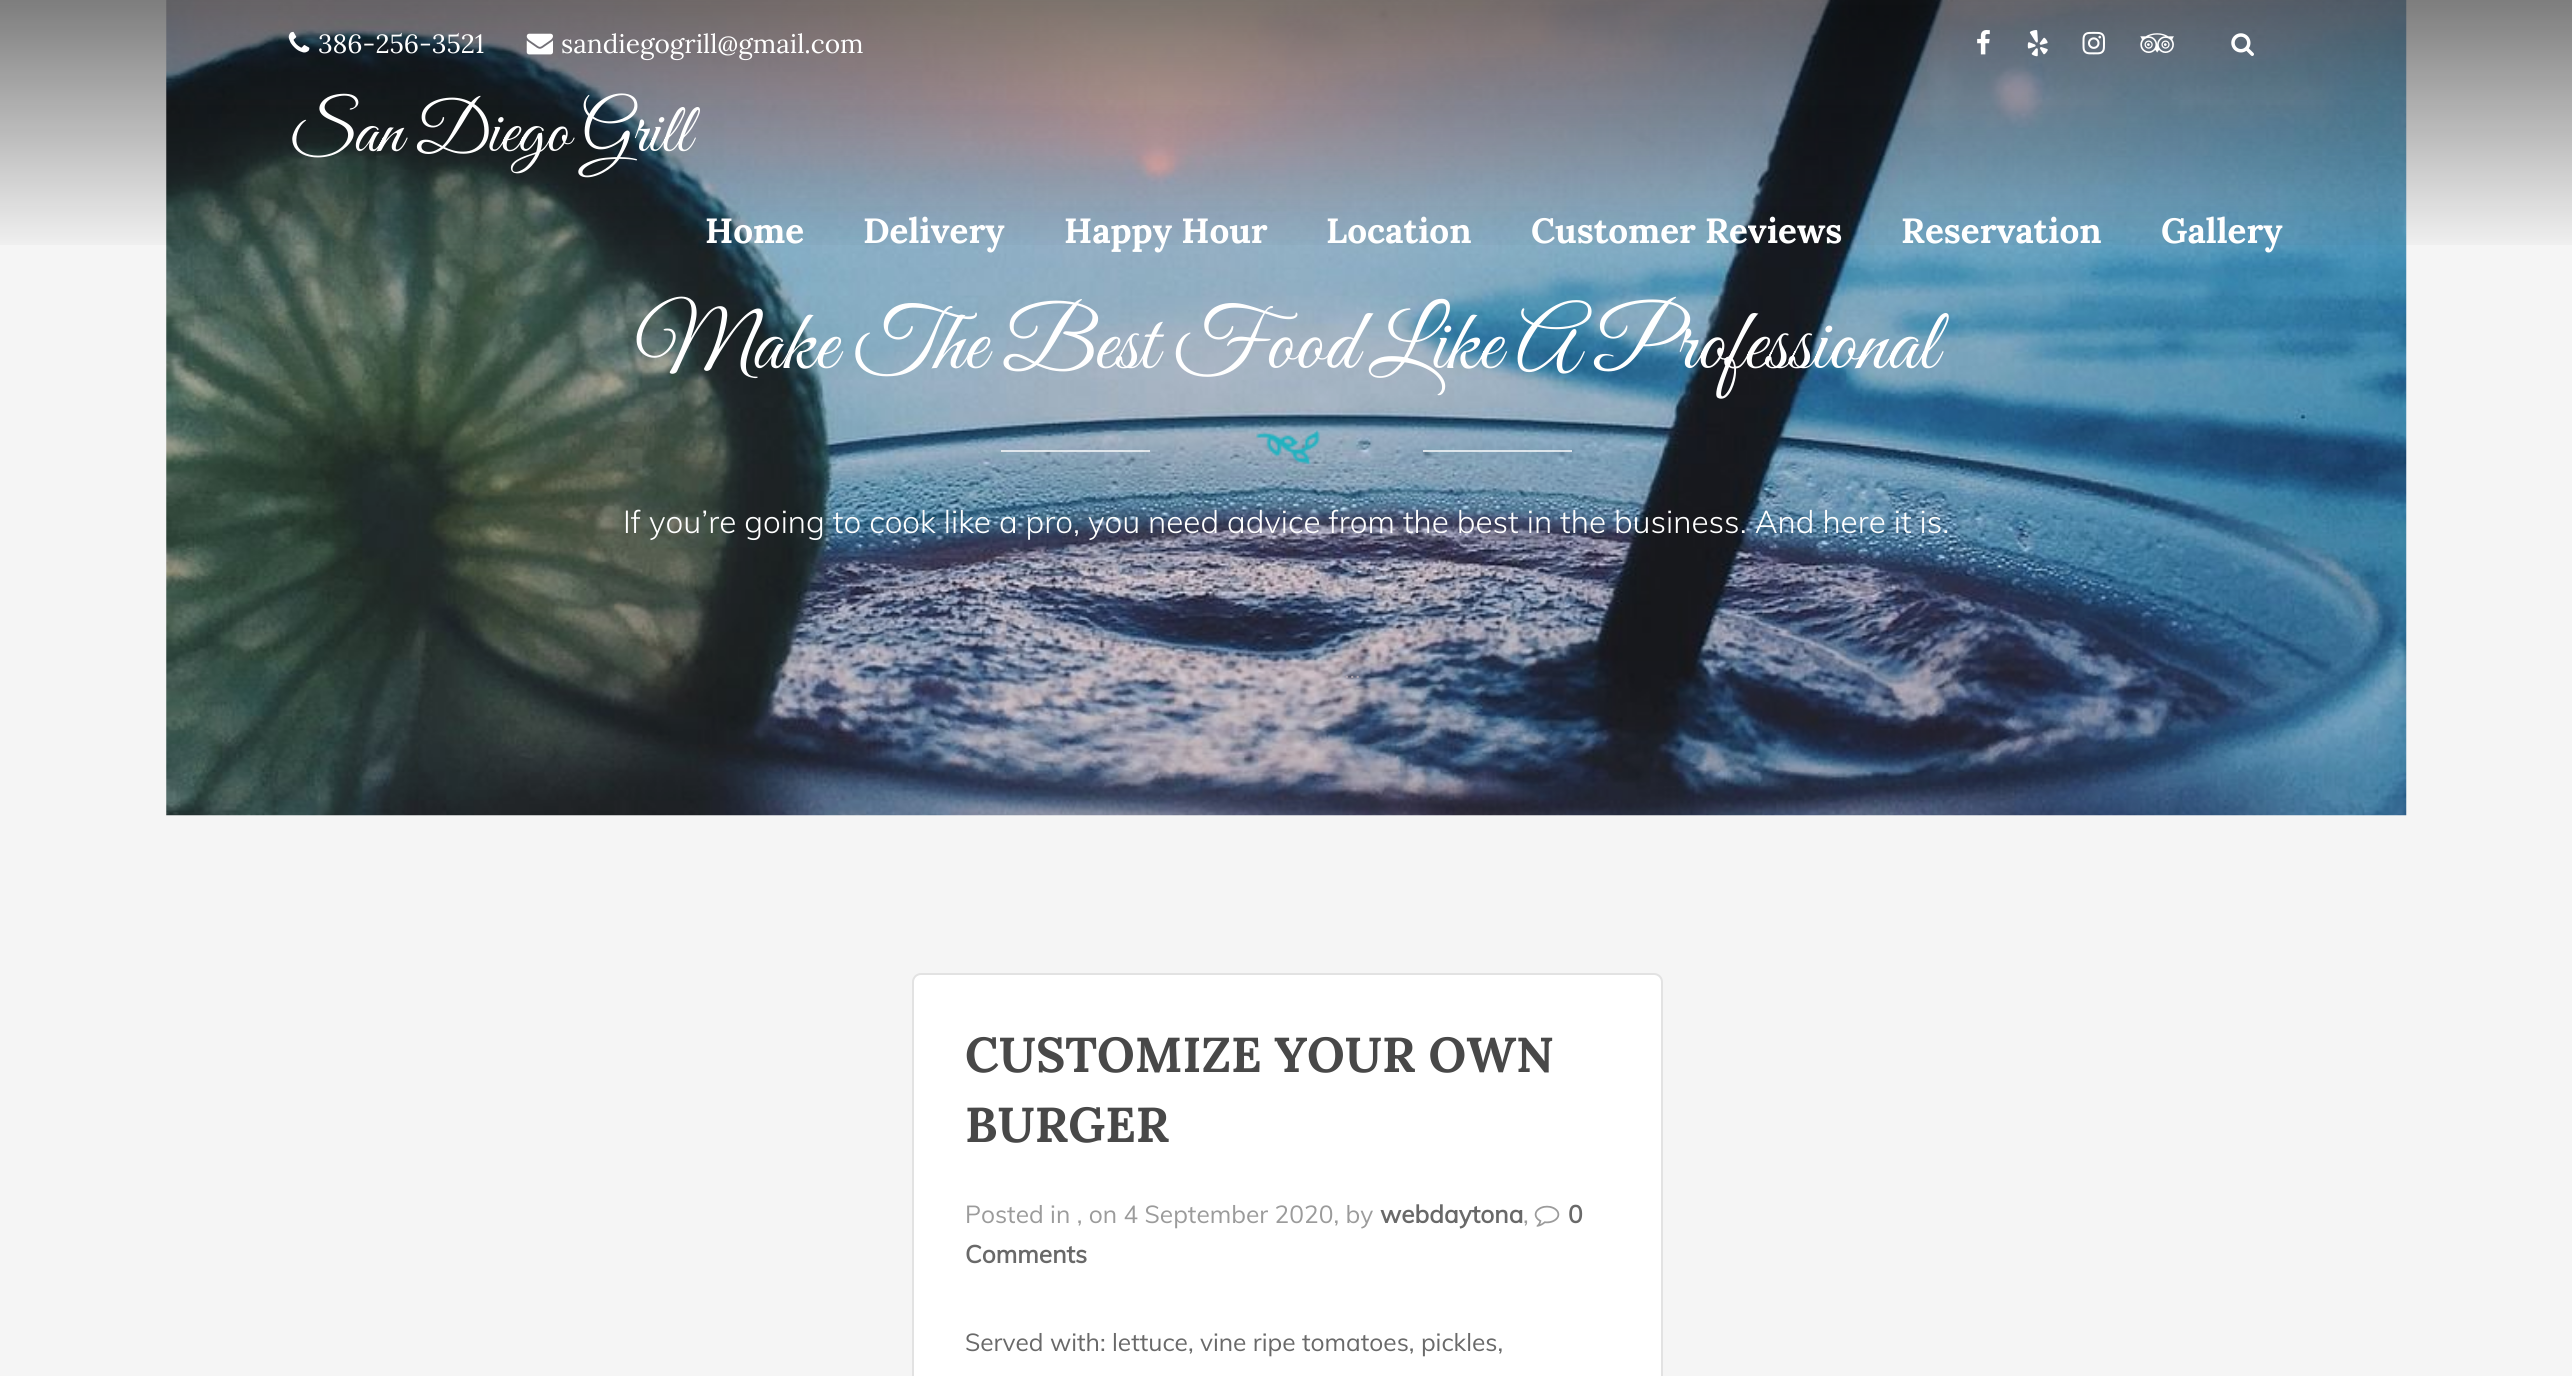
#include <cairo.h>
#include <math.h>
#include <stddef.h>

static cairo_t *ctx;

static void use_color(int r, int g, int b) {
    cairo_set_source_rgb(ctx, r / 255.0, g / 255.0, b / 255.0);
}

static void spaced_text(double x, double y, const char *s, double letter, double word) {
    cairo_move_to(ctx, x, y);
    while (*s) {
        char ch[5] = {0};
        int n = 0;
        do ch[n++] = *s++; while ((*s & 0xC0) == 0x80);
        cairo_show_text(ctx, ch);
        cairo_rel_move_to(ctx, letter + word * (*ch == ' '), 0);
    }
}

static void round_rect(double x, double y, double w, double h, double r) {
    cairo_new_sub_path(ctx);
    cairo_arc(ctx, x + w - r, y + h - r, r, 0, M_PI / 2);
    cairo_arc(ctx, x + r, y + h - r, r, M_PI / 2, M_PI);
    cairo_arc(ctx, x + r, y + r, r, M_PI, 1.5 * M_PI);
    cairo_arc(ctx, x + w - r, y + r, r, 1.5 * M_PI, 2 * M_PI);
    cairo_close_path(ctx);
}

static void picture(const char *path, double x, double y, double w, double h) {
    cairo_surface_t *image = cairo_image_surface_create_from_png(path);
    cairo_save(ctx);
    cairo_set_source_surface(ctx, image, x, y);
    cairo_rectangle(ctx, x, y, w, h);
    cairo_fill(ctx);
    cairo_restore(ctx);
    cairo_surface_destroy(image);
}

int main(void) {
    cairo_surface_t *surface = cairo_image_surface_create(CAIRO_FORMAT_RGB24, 2572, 1376);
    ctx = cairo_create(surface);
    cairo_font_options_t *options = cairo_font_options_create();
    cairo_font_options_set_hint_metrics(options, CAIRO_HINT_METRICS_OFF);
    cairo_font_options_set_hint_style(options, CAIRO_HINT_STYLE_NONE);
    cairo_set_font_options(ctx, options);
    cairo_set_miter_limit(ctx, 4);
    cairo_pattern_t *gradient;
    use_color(245, 245, 245);
    cairo_paint(ctx);
    picture("img8.png", 166, 0, 2241, 816);
    gradient = cairo_pattern_create_linear(1286, 0, 1286, 256);
    cairo_pattern_add_color_stop_rgba(gradient, 0, 0.02, 0.02, 0.02, 0.5);
    cairo_pattern_add_color_stop_rgba(gradient, 1, 0.02, 0.02, 0.02, 0);
    cairo_set_source(ctx, gradient);
    cairo_pattern_destroy(gradient);
    cairo_rectangle(ctx, 0, 0, 2572, 245);
    cairo_fill(ctx);
    picture("img1.png", 288, 31, 22, 22);
    cairo_select_font_face(ctx, "Lora", CAIRO_FONT_SLANT_NORMAL, CAIRO_FONT_WEIGHT_NORMAL);
    cairo_set_font_size(ctx, 26.25);
    use_color(255, 255, 255);
    cairo_move_to(ctx, 318, 53);
    cairo_show_text(ctx, "386-256-3521");
    picture("img2.png", 526, 33, 27, 22);
    cairo_move_to(ctx, 561, 53);
    cairo_show_text(ctx, "sandiegogrill@gmail.com");
    picture("img3.png", 1977, 30, 13, 25);
    picture("img4.png", 2027, 30, 21, 27);
    picture("img5.png", 2082, 31, 23, 24);
    picture("img6.png", 2140, 33, 34, 20);
    picture("img7.png", 2231, 33, 23, 23);
    cairo_select_font_face(ctx, "Great Vibes", CAIRO_FONT_SLANT_NORMAL, CAIRO_FONT_WEIGHT_NORMAL);
    cairo_set_font_size(ctx, 70);
    cairo_move_to(ctx, 289, 151);
    cairo_show_text(ctx, "San Diego Grill");
    cairo_select_font_face(ctx, "Lora", CAIRO_FONT_SLANT_NORMAL, CAIRO_FONT_WEIGHT_BOLD);
    cairo_set_font_size(ctx, 35);
    cairo_move_to(ctx, 705, 243);
    cairo_show_text(ctx, "Home");
    cairo_move_to(ctx, 863, 243);
    cairo_show_text(ctx, "Delivery");
    cairo_move_to(ctx, 1064, 243);
    cairo_show_text(ctx, "Happy Hour");
    cairo_move_to(ctx, 1326, 243);
    cairo_show_text(ctx, "Location");
    cairo_move_to(ctx, 1531, 243);
    cairo_show_text(ctx, "Customer Reviews");
    cairo_move_to(ctx, 1901, 243);
    cairo_show_text(ctx, "Reservation");
    cairo_move_to(ctx, 2161, 243);
    cairo_show_text(ctx, "Gallery");
    cairo_select_font_face(ctx, "Great Vibes", CAIRO_FONT_SLANT_NORMAL, CAIRO_FONT_WEIGHT_NORMAL);
    cairo_set_font_size(ctx, 87.5);
    spaced_text(635, 368, "Make The Best Food", 0, 1);
    cairo_move_to(ctx, 1369, 368);
    cairo_show_text(ctx, "Like A Professional");
    cairo_set_source_rgba(ctx, 1, 1, 1, 0.72);
    cairo_rectangle(ctx, 1001, 450, 149, 2);
    cairo_fill(ctx);
    picture("img9.png", 1256, 430, 64, 35);
    cairo_rectangle(ctx, 1423, 450, 149, 2);
    cairo_fill(ctx);
    cairo_select_font_face(ctx, "Muli Light", CAIRO_FONT_SLANT_NORMAL, CAIRO_FONT_WEIGHT_NORMAL);
    cairo_set_font_size(ctx, 31.5);
    use_color(255, 255, 255);
    cairo_move_to(ctx, 623, 533);
    cairo_show_text(ctx, "If you’re going to cook like a pro, you need advice from the best in the business. And here it is.");
    round_rect(913, 974, 749, 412, 8);
    cairo_fill_preserve(ctx);
    use_color(226, 226, 226);
    cairo_stroke(ctx);
    cairo_select_font_face(ctx, "Lora", CAIRO_FONT_SLANT_NORMAL, CAIRO_FONT_WEIGHT_BOLD);
    cairo_set_font_size(ctx, 49);
    use_color(72, 72, 72);
    cairo_move_to(ctx, 965, 1072);
    cairo_show_text(ctx, "CUSTOMIZE YOUR OWN");
    cairo_move_to(ctx, 965, 1142);
    cairo_show_text(ctx, "BURGER");
    cairo_select_font_face(ctx, "Muli", CAIRO_FONT_SLANT_NORMAL, CAIRO_FONT_WEIGHT_NORMAL);
    cairo_set_font_size(ctx, 24.5);
    use_color(155, 155, 155);
    cairo_move_to(ctx, 965, 1223);
    cairo_show_text(ctx, "Posted in , on 4 September 2020, by");
    cairo_select_font_face(ctx, "Muli", CAIRO_FONT_SLANT_NORMAL, CAIRO_FONT_WEIGHT_BOLD);
    use_color(105, 105, 105);
    cairo_move_to(ctx, 1380, 1223);
    cairo_show_text(ctx, "webdaytona");
    cairo_select_font_face(ctx, "Muli", CAIRO_FONT_SLANT_NORMAL, CAIRO_FONT_WEIGHT_NORMAL);
    use_color(155, 155, 155);
    cairo_move_to(ctx, 1523, 1223);
    cairo_show_text(ctx, ",");
    picture("img10.png", 1534, 1205, 26, 22);
    cairo_select_font_face(ctx, "Muli", CAIRO_FONT_SLANT_NORMAL, CAIRO_FONT_WEIGHT_BOLD);
    use_color(105, 105, 105);
    cairo_move_to(ctx, 1568, 1223);
    cairo_show_text(ctx, "0");
    cairo_move_to(ctx, 965, 1263);
    cairo_show_text(ctx, "Comments");
    cairo_select_font_face(ctx, "Muli", CAIRO_FONT_SLANT_NORMAL, CAIRO_FONT_WEIGHT_NORMAL);
    cairo_move_to(ctx, 965, 1351);
    cairo_show_text(ctx, "Served with: lettuce, vine ripe tomatoes, pickles,");
    cairo_select_font_face(ctx, "Muli Light", CAIRO_FONT_SLANT_NORMAL, CAIRO_FONT_WEIGHT_NORMAL);
    use_color(174, 164, 174);
    cairo_move_to(ctx, 1344, 678);
    cairo_show_text(ctx, "...");
    cairo_surface_write_to_png(surface, "result.png");
    cairo_font_options_destroy(options);
    cairo_destroy(ctx);
    cairo_surface_destroy(surface);
    return 0;
}
